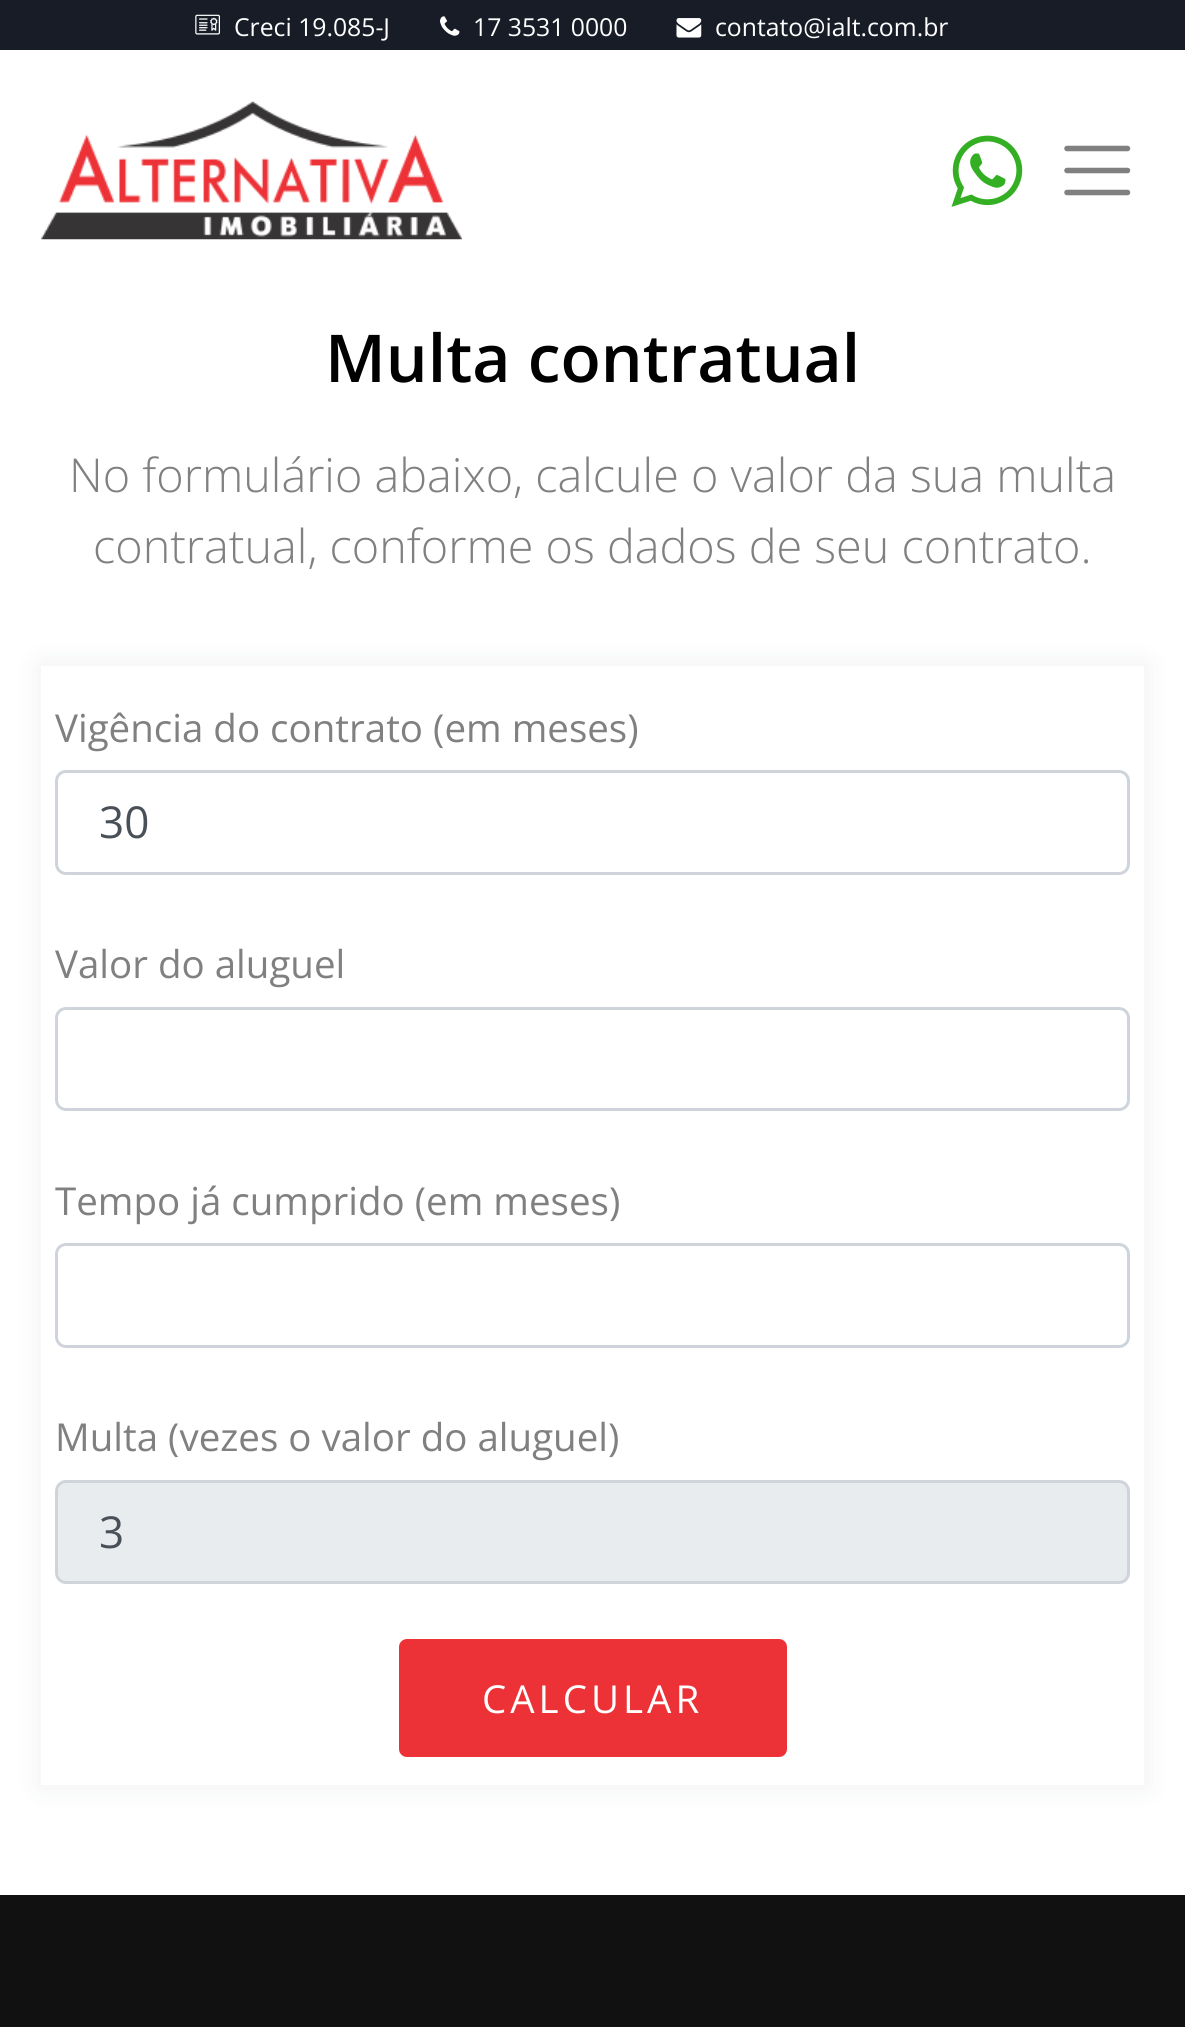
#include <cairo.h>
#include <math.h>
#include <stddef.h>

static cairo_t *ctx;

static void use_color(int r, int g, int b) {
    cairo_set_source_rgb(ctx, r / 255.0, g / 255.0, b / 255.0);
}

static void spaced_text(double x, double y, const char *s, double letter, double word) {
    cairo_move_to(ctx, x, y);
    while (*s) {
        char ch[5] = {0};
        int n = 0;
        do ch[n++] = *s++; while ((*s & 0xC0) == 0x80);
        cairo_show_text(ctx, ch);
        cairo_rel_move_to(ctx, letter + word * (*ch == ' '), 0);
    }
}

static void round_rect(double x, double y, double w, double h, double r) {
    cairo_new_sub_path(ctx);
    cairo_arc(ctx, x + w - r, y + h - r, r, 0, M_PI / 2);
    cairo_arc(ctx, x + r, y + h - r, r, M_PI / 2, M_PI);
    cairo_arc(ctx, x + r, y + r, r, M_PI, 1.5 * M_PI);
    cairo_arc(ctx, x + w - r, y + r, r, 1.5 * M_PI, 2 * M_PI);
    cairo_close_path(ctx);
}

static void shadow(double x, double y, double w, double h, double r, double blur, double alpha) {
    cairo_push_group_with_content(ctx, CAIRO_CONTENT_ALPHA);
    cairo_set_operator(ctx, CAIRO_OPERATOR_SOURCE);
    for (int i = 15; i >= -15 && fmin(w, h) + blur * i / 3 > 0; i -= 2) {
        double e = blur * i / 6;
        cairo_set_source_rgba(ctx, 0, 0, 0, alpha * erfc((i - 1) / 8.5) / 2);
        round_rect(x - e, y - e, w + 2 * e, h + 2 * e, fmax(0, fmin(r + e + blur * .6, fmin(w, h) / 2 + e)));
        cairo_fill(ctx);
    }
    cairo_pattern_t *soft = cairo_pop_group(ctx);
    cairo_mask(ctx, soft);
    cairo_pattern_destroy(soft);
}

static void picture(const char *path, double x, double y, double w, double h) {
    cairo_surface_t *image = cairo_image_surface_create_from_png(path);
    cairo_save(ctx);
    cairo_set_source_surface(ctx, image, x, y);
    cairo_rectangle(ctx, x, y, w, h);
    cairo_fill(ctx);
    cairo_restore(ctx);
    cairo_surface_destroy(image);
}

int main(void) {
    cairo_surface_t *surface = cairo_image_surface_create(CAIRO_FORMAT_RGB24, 1185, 2027);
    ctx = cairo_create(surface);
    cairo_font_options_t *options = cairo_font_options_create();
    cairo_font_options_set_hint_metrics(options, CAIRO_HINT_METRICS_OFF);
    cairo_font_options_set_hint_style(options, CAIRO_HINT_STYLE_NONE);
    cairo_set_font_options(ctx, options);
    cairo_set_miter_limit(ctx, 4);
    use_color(255, 255, 255);
    cairo_paint(ctx);
    use_color(23, 28, 38);
    cairo_rectangle(ctx, 0, 0, 1185, 50);
    cairo_fill(ctx);
    picture("img1.png", 195, 14, 25, 21);
    cairo_select_font_face(ctx, "Open Sans", CAIRO_FONT_SLANT_NORMAL, CAIRO_FONT_WEIGHT_NORMAL);
    cairo_set_font_size(ctx, 24.75);
    use_color(255, 255, 255);
    cairo_move_to(ctx, 234, 36);
    cairo_show_text(ctx, "Creci 19.085-J");
    picture("img2.png", 440, 16, 20, 20);
    cairo_move_to(ctx, 473, 36);
    cairo_show_text(ctx, "17 3531 0000");
    picture("img3.png", 676, 18, 26, 20);
    cairo_move_to(ctx, 715, 36);
    cairo_show_text(ctx, "contato@ialt.com.br");
    picture("img4.png", 41, 101, 421, 139);
    picture("img5.png", 951, 135, 72, 72);
    cairo_new_path(ctx);
    cairo_move_to(ctx, 1067, 148.5);
    cairo_line_to(ctx, 1127.5, 148.5);
    cairo_move_to(ctx, 1067, 170.5);
    cairo_line_to(ctx, 1127.5, 170.5);
    cairo_move_to(ctx, 1067, 192.5);
    cairo_line_to(ctx, 1127.5, 192.5);
    use_color(128, 128, 128);
    cairo_set_line_width(ctx, 5.5);
    cairo_set_line_cap(ctx, CAIRO_LINE_CAP_ROUND);
    cairo_stroke(ctx);
    cairo_select_font_face(ctx, "Open Sans SemiBold", CAIRO_FONT_SLANT_NORMAL, CAIRO_FONT_WEIGHT_NORMAL);
    cairo_set_font_size(ctx, 66);
    use_color(0, 0, 0);
    cairo_move_to(ctx, 325, 382);
    cairo_show_text(ctx, "Multa contratual");
    cairo_select_font_face(ctx, "Open Sans Light", CAIRO_FONT_SLANT_NORMAL, CAIRO_FONT_WEIGHT_NORMAL);
    cairo_set_font_size(ctx, 46.75);
    use_color(128, 128, 128);
    cairo_move_to(ctx, 69, 492);
    cairo_show_text(ctx, "No formulário abaixo, calcule o valor da sua multa");
    cairo_move_to(ctx, 93, 563);
    cairo_show_text(ctx, "contratual, conforme os dados de seu contrato.");
    use_color(71, 85, 95);
    shadow(39, 663, 1108, 1125, 0, 14, 0.08);
    use_color(255, 255, 255);
    cairo_rectangle(ctx, 41, 666, 1103, 1119);
    cairo_fill(ctx);
    cairo_select_font_face(ctx, "Open Sans", CAIRO_FONT_SLANT_NORMAL, CAIRO_FONT_WEIGHT_NORMAL);
    cairo_set_font_size(ctx, 38.5);
    use_color(128, 128, 128);
    cairo_move_to(ctx, 55, 742);
    cairo_show_text(ctx, "Vigência do contrato (em meses)");
    round_rect(56.5, 771.5, 1072, 102, 9.5);
    use_color(206, 212, 218);
    cairo_set_line_width(ctx, 3);
    cairo_set_line_cap(ctx, CAIRO_LINE_CAP_BUTT);
    cairo_stroke(ctx);
    cairo_set_font_size(ctx, 44);
    use_color(73, 80, 87);
    cairo_move_to(ctx, 99, 838);
    cairo_show_text(ctx, "30");
    cairo_set_font_size(ctx, 38.5);
    use_color(128, 128, 128);
    cairo_move_to(ctx, 55, 978);
    cairo_show_text(ctx, "Valor do aluguel");
    round_rect(56.5, 1008.5, 1072, 101, 9.5);
    use_color(206, 212, 218);
    cairo_stroke(ctx);
    use_color(128, 128, 128);
    cairo_move_to(ctx, 55, 1215);
    cairo_show_text(ctx, "Tempo já cumprido (em meses)");
    round_rect(56.5, 1244.5, 1072, 102, 9.5);
    use_color(206, 212, 218);
    cairo_stroke(ctx);
    use_color(128, 128, 128);
    cairo_move_to(ctx, 55, 1451);
    cairo_show_text(ctx, "Multa (vezes o valor do aluguel)");
    use_color(233, 236, 239);
    round_rect(56.5, 1481.5, 1072, 101, 9.5);
    cairo_fill_preserve(ctx);
    use_color(206, 212, 218);
    cairo_stroke(ctx);
    cairo_set_font_size(ctx, 44);
    use_color(73, 80, 87);
    cairo_move_to(ctx, 99, 1548);
    cairo_show_text(ctx, "3");
    use_color(237, 50, 55);
    round_rect(399, 1639, 388, 118, 8);
    cairo_fill(ctx);
    cairo_set_font_size(ctx, 38.5);
    use_color(255, 255, 255);
    spaced_text(482, 1713, "CALCULAR", 4, 0);
    use_color(17, 17, 17);
    cairo_rectangle(ctx, 0, 1895, 1185, 132);
    cairo_fill(ctx);
    cairo_surface_write_to_png(surface, "result.png");
    cairo_font_options_destroy(options);
    cairo_destroy(ctx);
    cairo_surface_destroy(surface);
    return 0;
}
